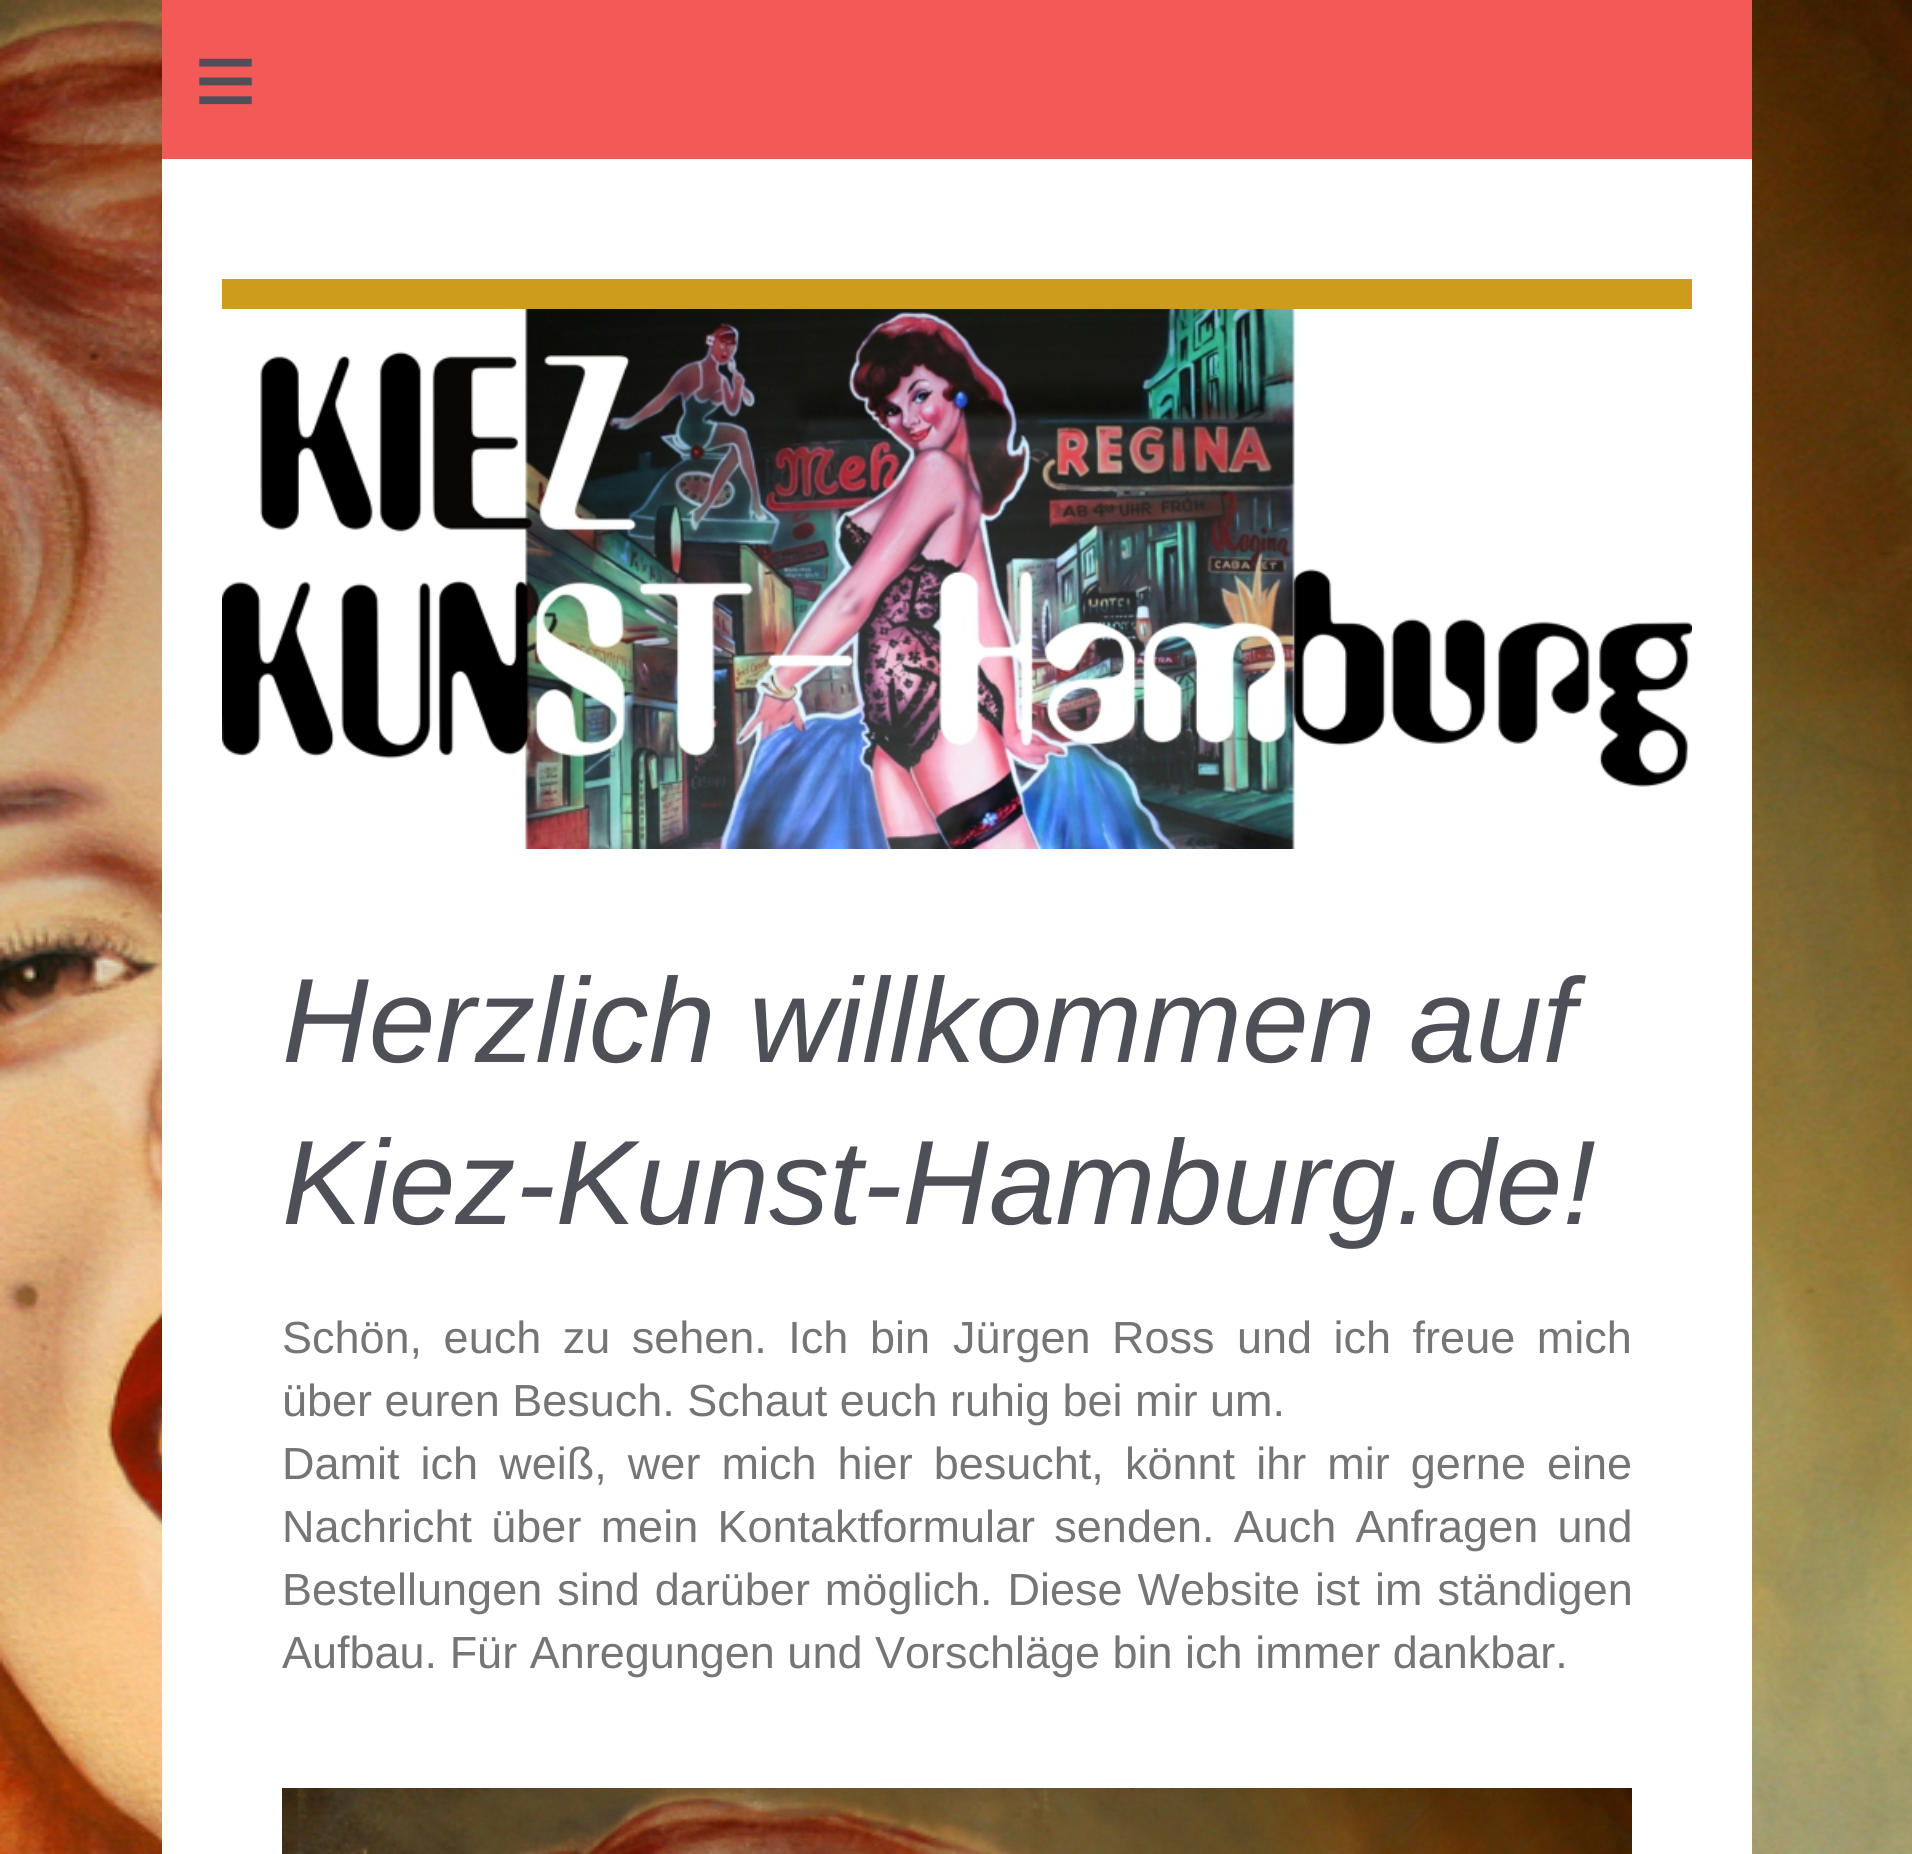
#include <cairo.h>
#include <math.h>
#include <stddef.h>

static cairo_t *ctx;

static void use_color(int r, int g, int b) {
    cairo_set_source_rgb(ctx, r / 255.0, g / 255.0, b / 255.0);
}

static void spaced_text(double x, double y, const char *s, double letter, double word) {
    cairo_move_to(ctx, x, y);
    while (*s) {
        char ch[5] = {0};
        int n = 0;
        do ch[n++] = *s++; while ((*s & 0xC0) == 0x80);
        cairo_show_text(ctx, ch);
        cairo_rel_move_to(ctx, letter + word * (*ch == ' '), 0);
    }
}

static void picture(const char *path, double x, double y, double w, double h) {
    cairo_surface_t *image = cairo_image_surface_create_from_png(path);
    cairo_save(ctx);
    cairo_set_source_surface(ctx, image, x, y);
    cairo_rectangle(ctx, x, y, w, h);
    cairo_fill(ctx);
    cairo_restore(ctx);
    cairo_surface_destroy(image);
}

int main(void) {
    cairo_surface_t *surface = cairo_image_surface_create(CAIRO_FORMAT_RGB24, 1912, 1854);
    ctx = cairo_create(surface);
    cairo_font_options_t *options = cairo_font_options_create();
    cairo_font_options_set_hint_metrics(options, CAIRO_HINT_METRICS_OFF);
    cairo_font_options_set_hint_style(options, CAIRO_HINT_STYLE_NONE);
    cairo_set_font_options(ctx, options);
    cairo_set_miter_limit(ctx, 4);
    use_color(255, 255, 255);
    cairo_paint(ctx);
    picture("img1.png", 0, 0, 1912, 1854);
    use_color(242, 90, 88);
    cairo_rectangle(ctx, 162, 0, 1590, 159);
    cairo_fill(ctx);
    cairo_select_font_face(ctx, "Liberation Sans", CAIRO_FONT_SLANT_NORMAL, CAIRO_FONT_WEIGHT_NORMAL);
    cairo_set_font_size(ctx, 108);
    use_color(79, 79, 88);
    spaced_text(194, 117, "≡", 32, 0);
    use_color(255, 255, 255);
    cairo_rectangle(ctx, 162, 159, 1590, 1695);
    cairo_fill(ctx);
    use_color(206, 156, 28);
    cairo_rectangle(ctx, 222, 279, 1470, 30);
    cairo_fill(ctx);
    picture("img2.png", 222, 309, 1470, 540);
    cairo_select_font_face(ctx, "Liberation Sans", CAIRO_FONT_SLANT_ITALIC, CAIRO_FONT_WEIGHT_NORMAL);
    cairo_set_font_size(ctx, 120);
    use_color(79, 79, 88);
    cairo_move_to(ctx, 282, 1062);
    cairo_show_text(ctx, "Herzlich willkommen auf");
    cairo_move_to(ctx, 282, 1224);
    cairo_show_text(ctx, "Kiez-Kunst-Hamburg.de!");
    cairo_select_font_face(ctx, "Liberation Sans", CAIRO_FONT_SLANT_NORMAL, CAIRO_FONT_WEIGHT_NORMAL);
    cairo_set_font_size(ctx, 45);
    use_color(117, 117, 117);
    spaced_text(282, 1353, "Schön, euch zu sehen. Ich bin", 0, 9);
    cairo_move_to(ctx, 953, 1353);
    cairo_show_text(ctx, "Jürgen");
    cairo_move_to(ctx, 1112, 1353);
    cairo_show_text(ctx, "Ross");
    spaced_text(1237, 1353, "und ich freue mich", 0, 9);
    cairo_move_to(ctx, 282, 1416);
    cairo_show_text(ctx, "über euren Besuch. Schaut euch ruhig bei mir um.");
    spaced_text(282, 1479, "Damit ich weiß, wer mich hier besucht, könnt ihr mir gerne eine", 0, 8.6);
    spaced_text(282, 1542, "Nachricht über mein Kontaktformular senden. Auch Anfragen und", 0, 6.75);
    spaced_text(282, 1605, "Bestellungen sind darüber möglich. Diese Website ist im ständigen", 0, 2.5);
    cairo_move_to(ctx, 282, 1668);
    cairo_show_text(ctx, "Aufbau. Für Anregungen und Vorschläge bin ich immer dankbar.");
    picture("img3.png", 282, 1788, 1350, 66);
    cairo_surface_write_to_png(surface, "result.png");
    cairo_font_options_destroy(options);
    cairo_destroy(ctx);
    cairo_surface_destroy(surface);
    return 0;
}
